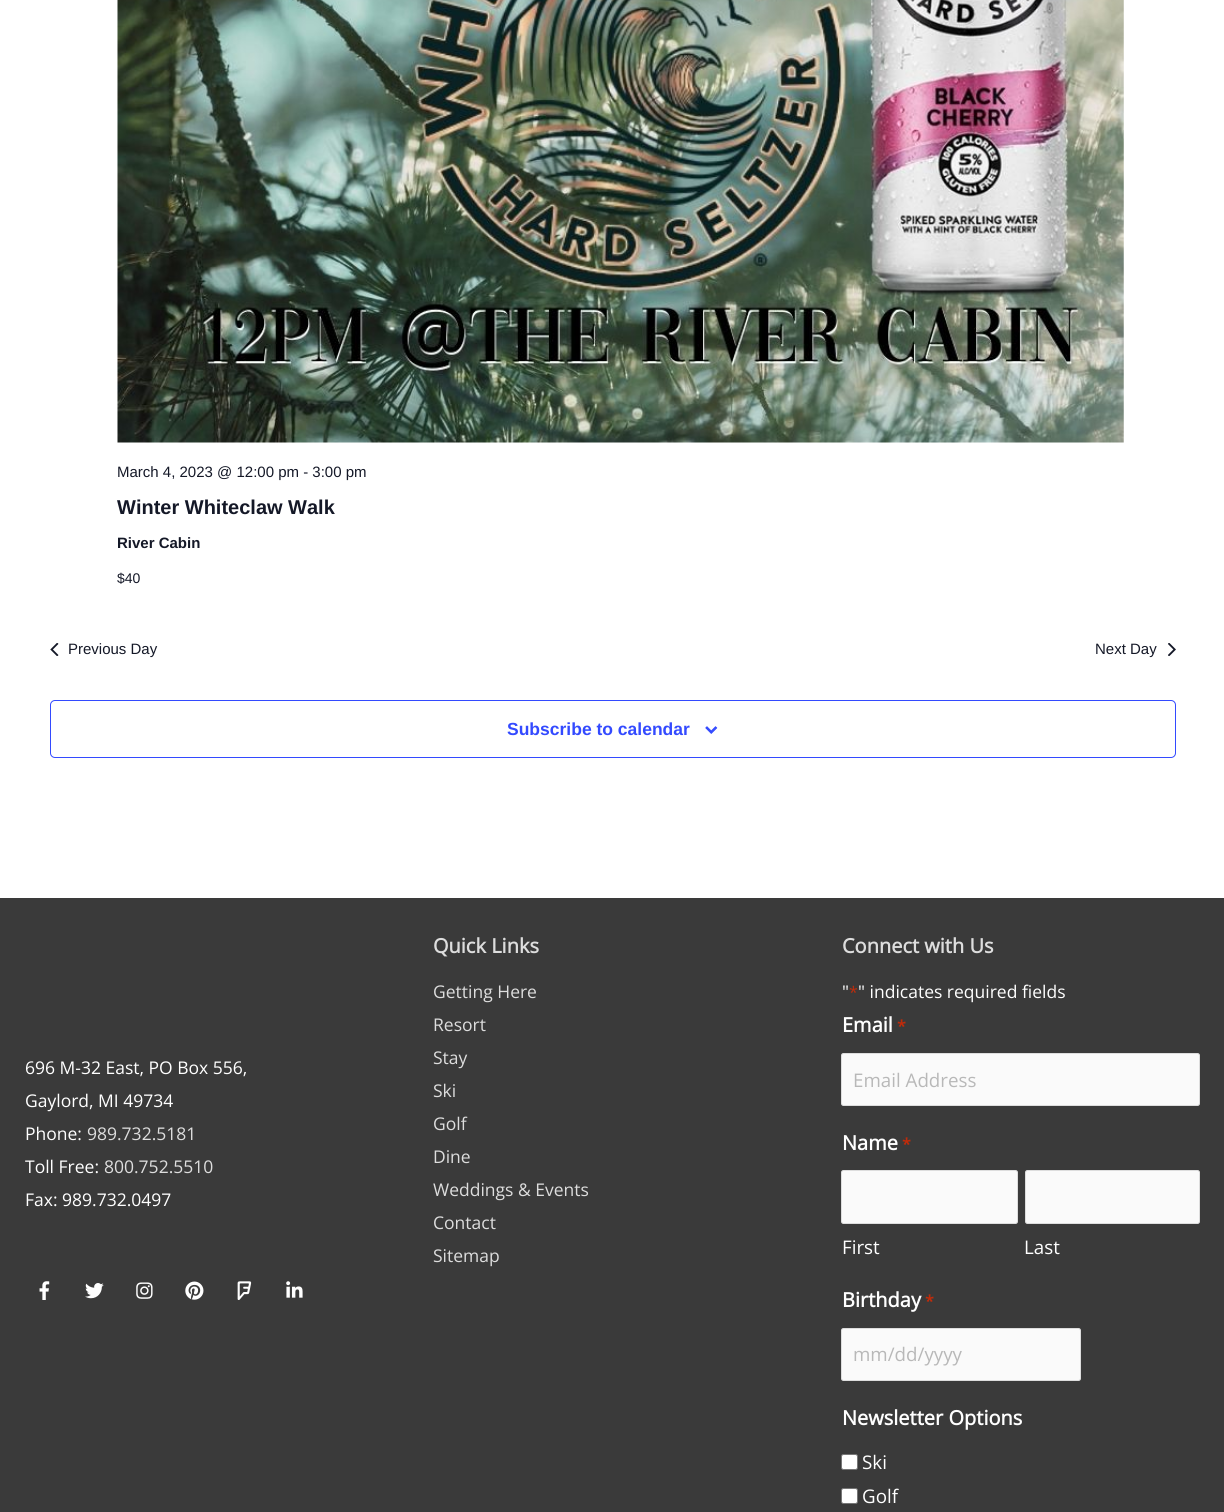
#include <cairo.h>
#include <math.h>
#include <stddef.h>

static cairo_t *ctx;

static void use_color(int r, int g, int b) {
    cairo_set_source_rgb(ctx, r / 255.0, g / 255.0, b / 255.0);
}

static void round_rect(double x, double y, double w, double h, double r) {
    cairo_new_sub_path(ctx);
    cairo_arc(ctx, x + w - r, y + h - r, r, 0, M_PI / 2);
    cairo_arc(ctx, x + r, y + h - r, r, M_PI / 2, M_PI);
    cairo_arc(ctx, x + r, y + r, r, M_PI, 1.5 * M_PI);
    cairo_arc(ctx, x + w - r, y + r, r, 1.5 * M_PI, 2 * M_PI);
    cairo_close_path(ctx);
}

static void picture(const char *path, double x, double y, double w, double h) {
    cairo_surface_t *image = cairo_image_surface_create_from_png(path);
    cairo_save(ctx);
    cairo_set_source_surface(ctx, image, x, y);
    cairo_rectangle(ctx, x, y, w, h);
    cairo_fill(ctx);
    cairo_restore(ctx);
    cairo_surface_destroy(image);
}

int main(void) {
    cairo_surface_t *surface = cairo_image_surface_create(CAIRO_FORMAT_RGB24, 1224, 1512);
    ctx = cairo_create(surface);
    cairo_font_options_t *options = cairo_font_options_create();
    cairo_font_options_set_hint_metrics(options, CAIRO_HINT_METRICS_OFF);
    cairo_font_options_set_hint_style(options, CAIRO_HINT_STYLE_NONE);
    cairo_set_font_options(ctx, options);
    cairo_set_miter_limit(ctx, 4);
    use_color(255, 255, 255);
    cairo_paint(ctx);
    picture("img1.png", 117, 0, 1007, 443);
    cairo_select_font_face(ctx, "Liberation Sans", CAIRO_FONT_SLANT_NORMAL, CAIRO_FONT_WEIGHT_NORMAL);
    cairo_set_font_size(ctx, 15);
    use_color(20, 24, 39);
    cairo_move_to(ctx, 117, 477);
    cairo_show_text(ctx, "March 4, 2023 @ 12:00 pm - 3:00 pm");
    cairo_select_font_face(ctx, "Liberation Sans", CAIRO_FONT_SLANT_NORMAL, CAIRO_FONT_WEIGHT_BOLD);
    cairo_set_font_size(ctx, 20);
    cairo_move_to(ctx, 117, 514);
    cairo_show_text(ctx, "Winter Whiteclaw Walk");
    cairo_set_font_size(ctx, 15);
    cairo_move_to(ctx, 117, 548);
    cairo_show_text(ctx, "River Cabin");
    cairo_select_font_face(ctx, "Liberation Sans", CAIRO_FONT_SLANT_NORMAL, CAIRO_FONT_WEIGHT_NORMAL);
    cairo_set_font_size(ctx, 14);
    cairo_move_to(ctx, 117, 583);
    cairo_show_text(ctx, "$40");
    picture("img2.png", 50, 643, 9, 13);
    cairo_set_font_size(ctx, 15);
    cairo_move_to(ctx, 68, 654);
    cairo_show_text(ctx, "Previous Day");
    cairo_move_to(ctx, 1095, 654);
    cairo_show_text(ctx, "Next Day");
    picture("img3.png", 1168, 643, 8, 13);
    round_rect(50.5, 700.5, 1125, 57, 4.5);
    use_color(51, 74, 255);
    cairo_set_line_width(ctx, 1);
    cairo_stroke(ctx);
    cairo_select_font_face(ctx, "Liberation Sans", CAIRO_FONT_SLANT_NORMAL, CAIRO_FONT_WEIGHT_BOLD);
    cairo_set_font_size(ctx, 17.5);
    cairo_move_to(ctx, 507, 735);
    cairo_show_text(ctx, "Subscribe to calendar");
    picture("img4.png", 705, 726, 13, 8);
    use_color(58, 58, 58);
    cairo_rectangle(ctx, 0, 898, 1224, 614);
    cairo_fill(ctx);
    cairo_select_font_face(ctx, "Open Sans", CAIRO_FONT_SLANT_NORMAL, CAIRO_FONT_WEIGHT_NORMAL);
    use_color(255, 255, 255);
    cairo_move_to(ctx, 25, 1074);
    cairo_show_text(ctx, "696 M-32 East, PO Box 556,");
    cairo_move_to(ctx, 25, 1107);
    cairo_show_text(ctx, "Gaylord, MI 49734");
    cairo_move_to(ctx, 25, 1140);
    cairo_show_text(ctx, "Phone:");
    use_color(221, 221, 221);
    cairo_move_to(ctx, 87, 1140);
    cairo_show_text(ctx, "989.732.5181");
    use_color(255, 255, 255);
    cairo_move_to(ctx, 25, 1173);
    cairo_show_text(ctx, "Toll Free:");
    use_color(221, 221, 221);
    cairo_move_to(ctx, 104, 1173);
    cairo_show_text(ctx, "800.752.5510");
    use_color(255, 255, 255);
    cairo_move_to(ctx, 25, 1206);
    cairo_show_text(ctx, "Fax: 989.732.0497");
    picture("img5.png", 39, 1281, 11, 19);
    picture("img6.png", 85, 1283, 19, 16);
    picture("img7.png", 136, 1282, 17, 17);
    picture("img8.png", 185, 1281, 19, 19);
    picture("img9.png", 237, 1281, 15, 19);
    picture("img10.png", 286, 1281, 17, 17);
    cairo_select_font_face(ctx, "Open Sans", CAIRO_FONT_SLANT_NORMAL, CAIRO_FONT_WEIGHT_BOLD);
    cairo_set_font_size(ctx, 20);
    use_color(221, 221, 221);
    cairo_move_to(ctx, 433, 953);
    cairo_show_text(ctx, "Quick Links");
    cairo_select_font_face(ctx, "Open Sans", CAIRO_FONT_SLANT_NORMAL, CAIRO_FONT_WEIGHT_NORMAL);
    cairo_set_font_size(ctx, 17.5);
    cairo_move_to(ctx, 433, 998);
    cairo_show_text(ctx, "Getting Here");
    cairo_move_to(ctx, 433, 1031);
    cairo_show_text(ctx, "Resort");
    cairo_move_to(ctx, 433, 1064);
    cairo_show_text(ctx, "Stay");
    cairo_move_to(ctx, 433, 1097);
    cairo_show_text(ctx, "Ski");
    cairo_move_to(ctx, 433, 1130);
    cairo_show_text(ctx, "Golf");
    cairo_move_to(ctx, 433, 1163);
    cairo_show_text(ctx, "Dine");
    cairo_move_to(ctx, 433, 1196);
    cairo_show_text(ctx, "Weddings & Events");
    cairo_move_to(ctx, 433, 1229);
    cairo_show_text(ctx, "Contact");
    cairo_move_to(ctx, 433, 1262);
    cairo_show_text(ctx, "Sitemap");
    cairo_select_font_face(ctx, "Open Sans", CAIRO_FONT_SLANT_NORMAL, CAIRO_FONT_WEIGHT_BOLD);
    cairo_set_font_size(ctx, 20);
    cairo_move_to(ctx, 842, 953);
    cairo_show_text(ctx, "Connect with Us");
    cairo_select_font_face(ctx, "Open Sans", CAIRO_FONT_SLANT_NORMAL, CAIRO_FONT_WEIGHT_NORMAL);
    cairo_set_font_size(ctx, 17.5);
    use_color(255, 255, 255);
    cairo_move_to(ctx, 842, 998);
    cairo_show_text(ctx, "\"");
    cairo_set_font_size(ctx, 16);
    use_color(192, 43, 10);
    cairo_move_to(ctx, 849, 998);
    cairo_show_text(ctx, "*");
    cairo_set_font_size(ctx, 17.5);
    use_color(255, 255, 255);
    cairo_move_to(ctx, 858, 998);
    cairo_show_text(ctx, "\" indicates required fields");
    cairo_select_font_face(ctx, "Open Sans", CAIRO_FONT_SLANT_NORMAL, CAIRO_FONT_WEIGHT_BOLD);
    cairo_set_font_size(ctx, 20);
    cairo_move_to(ctx, 842, 1032);
    cairo_show_text(ctx, "Email");
    cairo_set_font_size(ctx, 16);
    use_color(192, 43, 10);
    cairo_move_to(ctx, 897, 1032);
    cairo_show_text(ctx, "*");
    use_color(250, 250, 250);
    round_rect(841.5, 1053.5, 358, 52, 2);
    cairo_fill_preserve(ctx);
    use_color(221, 221, 221);
    cairo_stroke(ctx);
    cairo_select_font_face(ctx, "Open Sans", CAIRO_FONT_SLANT_NORMAL, CAIRO_FONT_WEIGHT_NORMAL);
    cairo_set_font_size(ctx, 18.75);
    use_color(184, 184, 184);
    cairo_move_to(ctx, 853, 1087);
    cairo_show_text(ctx, "Email Address");
    cairo_select_font_face(ctx, "Open Sans", CAIRO_FONT_SLANT_NORMAL, CAIRO_FONT_WEIGHT_BOLD);
    cairo_set_font_size(ctx, 20);
    use_color(255, 255, 255);
    cairo_move_to(ctx, 842, 1150);
    cairo_show_text(ctx, "Name");
    cairo_set_font_size(ctx, 16);
    use_color(192, 43, 10);
    cairo_move_to(ctx, 902, 1150);
    cairo_show_text(ctx, "*");
    use_color(250, 250, 250);
    round_rect(841.5, 1170.5, 176, 53, 2);
    cairo_fill_preserve(ctx);
    use_color(221, 221, 221);
    cairo_stroke(ctx);
    cairo_select_font_face(ctx, "Open Sans", CAIRO_FONT_SLANT_NORMAL, CAIRO_FONT_WEIGHT_NORMAL);
    cairo_set_font_size(ctx, 18.75);
    use_color(255, 255, 255);
    cairo_move_to(ctx, 842, 1254);
    cairo_show_text(ctx, "First");
    use_color(250, 250, 250);
    round_rect(1025.5, 1170.5, 174, 53, 2);
    cairo_fill_preserve(ctx);
    use_color(221, 221, 221);
    cairo_stroke(ctx);
    use_color(255, 255, 255);
    cairo_move_to(ctx, 1024, 1254);
    cairo_show_text(ctx, "Last");
    cairo_select_font_face(ctx, "Open Sans", CAIRO_FONT_SLANT_NORMAL, CAIRO_FONT_WEIGHT_BOLD);
    cairo_set_font_size(ctx, 20);
    cairo_move_to(ctx, 842, 1307);
    cairo_show_text(ctx, "Birthday");
    cairo_set_font_size(ctx, 16);
    use_color(192, 43, 10);
    cairo_move_to(ctx, 925, 1307);
    cairo_show_text(ctx, "*");
    use_color(250, 250, 250);
    round_rect(841.5, 1328.5, 239, 52, 2);
    cairo_fill_preserve(ctx);
    use_color(221, 221, 221);
    cairo_stroke(ctx);
    cairo_select_font_face(ctx, "Open Sans", CAIRO_FONT_SLANT_NORMAL, CAIRO_FONT_WEIGHT_NORMAL);
    cairo_set_font_size(ctx, 18.75);
    use_color(184, 184, 184);
    cairo_move_to(ctx, 853, 1361);
    cairo_show_text(ctx, "mm/dd/yyyy");
    cairo_select_font_face(ctx, "Open Sans", CAIRO_FONT_SLANT_NORMAL, CAIRO_FONT_WEIGHT_BOLD);
    cairo_set_font_size(ctx, 20);
    use_color(255, 255, 255);
    cairo_move_to(ctx, 842, 1425);
    cairo_show_text(ctx, "Newsletter Options");
    round_rect(841.5, 1454.5, 16, 15, 2);
    cairo_fill_preserve(ctx);
    use_color(118, 118, 118);
    cairo_stroke(ctx);
    cairo_select_font_face(ctx, "Open Sans", CAIRO_FONT_SLANT_NORMAL, CAIRO_FONT_WEIGHT_NORMAL);
    cairo_set_font_size(ctx, 18.75);
    use_color(255, 255, 255);
    cairo_move_to(ctx, 862, 1469);
    cairo_show_text(ctx, "Ski");
    round_rect(841.5, 1488.5, 16, 15, 2);
    cairo_fill_preserve(ctx);
    use_color(118, 118, 118);
    cairo_stroke(ctx);
    use_color(255, 255, 255);
    cairo_move_to(ctx, 862, 1503);
    cairo_show_text(ctx, "Golf");
    cairo_surface_write_to_png(surface, "result.png");
    cairo_font_options_destroy(options);
    cairo_destroy(ctx);
    cairo_surface_destroy(surface);
    return 0;
}
